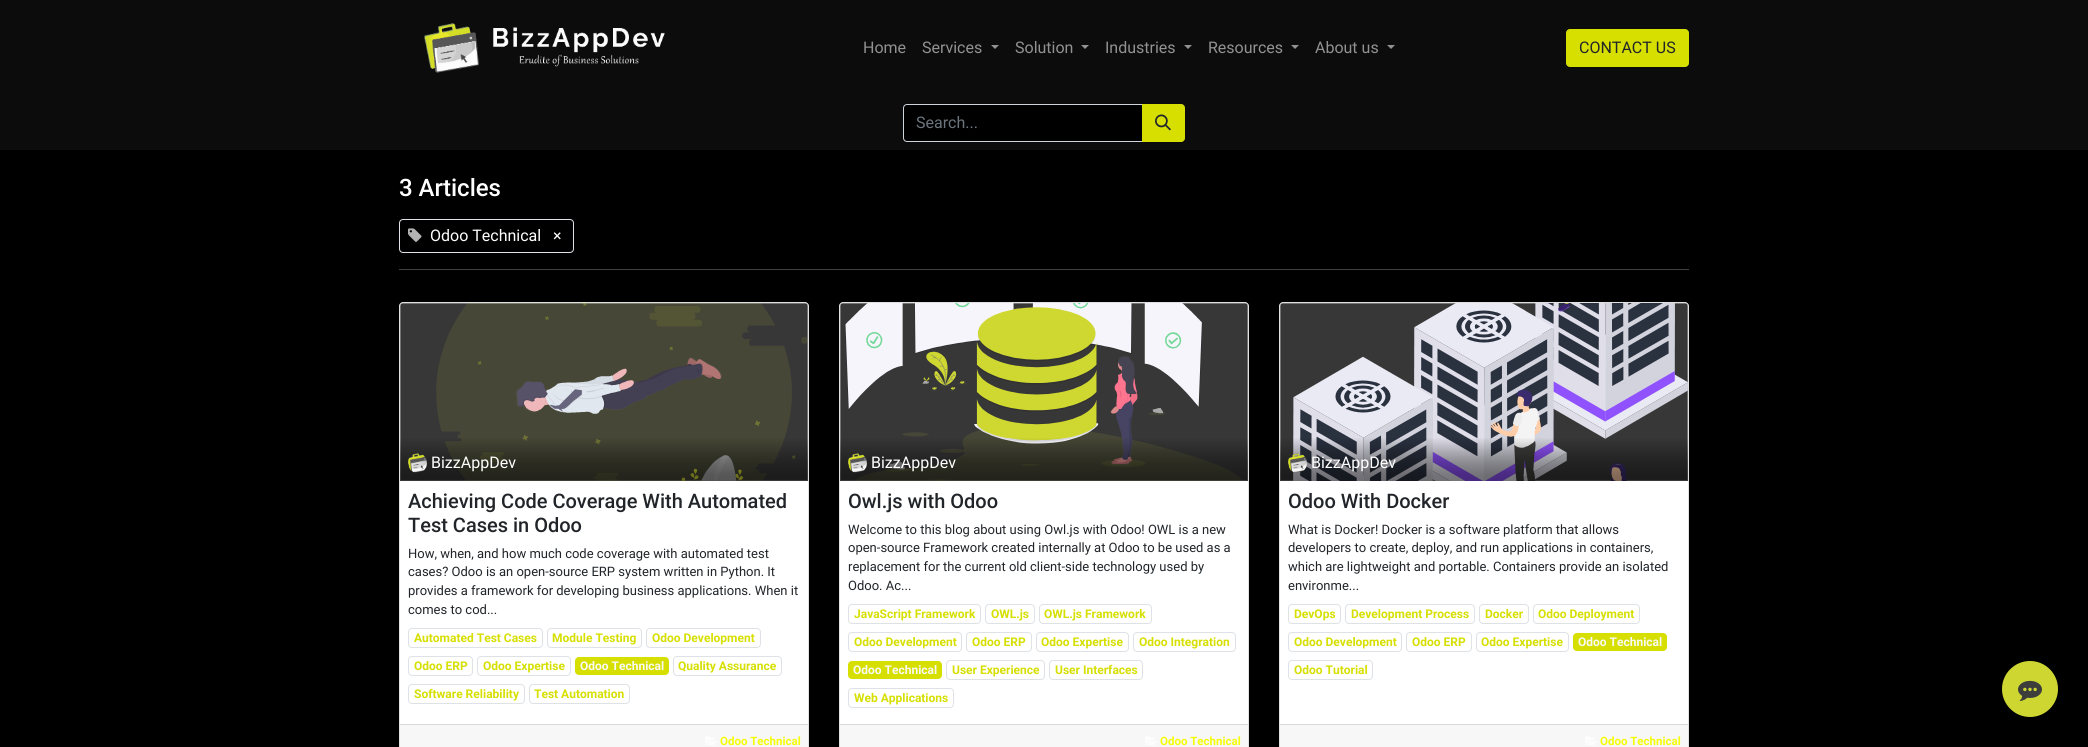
#include <cairo.h>
#include <math.h>
#include <stddef.h>

static cairo_t *ctx;

static void use_color(int r, int g, int b) {
    cairo_set_source_rgb(ctx, r / 255.0, g / 255.0, b / 255.0);
}

static void round_rect(double x, double y, double w, double h, double r) {
    cairo_new_sub_path(ctx);
    cairo_arc(ctx, x + w - r, y + h - r, r, 0, M_PI / 2);
    cairo_arc(ctx, x + r, y + h - r, r, M_PI / 2, M_PI);
    cairo_arc(ctx, x + r, y + r, r, M_PI, 1.5 * M_PI);
    cairo_arc(ctx, x + w - r, y + r, r, 1.5 * M_PI, 2 * M_PI);
    cairo_close_path(ctx);
}

static void picture(const char *path, double x, double y, double w, double h) {
    cairo_surface_t *image = cairo_image_surface_create_from_png(path);
    cairo_save(ctx);
    cairo_set_source_surface(ctx, image, x, y);
    cairo_rectangle(ctx, x, y, w, h);
    cairo_fill(ctx);
    cairo_restore(ctx);
    cairo_surface_destroy(image);
}

int main(void) {
    cairo_surface_t *surface = cairo_image_surface_create(CAIRO_FORMAT_RGB24, 2088, 747);
    ctx = cairo_create(surface);
    cairo_font_options_t *options = cairo_font_options_create();
    cairo_font_options_set_hint_metrics(options, CAIRO_HINT_METRICS_OFF);
    cairo_font_options_set_hint_style(options, CAIRO_HINT_STYLE_NONE);
    cairo_set_font_options(ctx, options);
    cairo_set_miter_limit(ctx, 4);
    cairo_pattern_t *gradient;
    use_color(0, 0, 0);
    cairo_paint(ctx);
    use_color(12, 12, 12);
    cairo_rectangle(ctx, 0, 0, 2088, 150);
    cairo_fill(ctx);
    picture("img1.png", 424, 23, 241, 50);
    cairo_select_font_face(ctx, "Roboto", CAIRO_FONT_SLANT_NORMAL, CAIRO_FONT_WEIGHT_NORMAL);
    cairo_set_font_size(ctx, 16);
    use_color(146, 146, 146);
    cairo_move_to(ctx, 863, 53);
    cairo_show_text(ctx, "Home");
    cairo_move_to(ctx, 922, 53);
    cairo_show_text(ctx, "Services");
    cairo_new_path(ctx);
    cairo_move_to(ctx, 991, 45);
    cairo_line_to(ctx, 999, 45);
    cairo_line_to(ctx, 995, 49);
    cairo_close_path(ctx);
    cairo_fill(ctx);
    cairo_move_to(ctx, 1015, 53);
    cairo_show_text(ctx, "Solution");
    cairo_new_path(ctx);
    cairo_move_to(ctx, 1081, 45);
    cairo_line_to(ctx, 1089, 45);
    cairo_line_to(ctx, 1085, 49);
    cairo_close_path(ctx);
    cairo_fill(ctx);
    cairo_move_to(ctx, 1105, 53);
    cairo_show_text(ctx, "Industries");
    cairo_new_path(ctx);
    cairo_move_to(ctx, 1184, 45);
    cairo_line_to(ctx, 1192, 45);
    cairo_line_to(ctx, 1188, 49);
    cairo_close_path(ctx);
    cairo_fill(ctx);
    cairo_move_to(ctx, 1208, 53);
    cairo_show_text(ctx, "Resources");
    cairo_new_path(ctx);
    cairo_move_to(ctx, 1291, 45);
    cairo_line_to(ctx, 1299, 45);
    cairo_line_to(ctx, 1295, 49);
    cairo_close_path(ctx);
    cairo_fill(ctx);
    cairo_move_to(ctx, 1315, 53);
    cairo_show_text(ctx, "About us");
    cairo_new_path(ctx);
    cairo_move_to(ctx, 1387, 45);
    cairo_line_to(ctx, 1395, 45);
    cairo_line_to(ctx, 1391, 49);
    cairo_close_path(ctx);
    cairo_fill(ctx);
    use_color(214, 223, 0);
    round_rect(1566.5, 29.5, 122, 37, 3.5);
    cairo_fill_preserve(ctx);
    cairo_set_line_width(ctx, 1);
    cairo_stroke(ctx);
    use_color(33, 37, 41);
    cairo_move_to(ctx, 1579, 53);
    cairo_show_text(ctx, "CONTACT US");
    use_color(0, 0, 0);
    cairo_new_path(ctx);
    cairo_move_to(ctx, 907, 104.5);
    cairo_line_to(ctx, 1142.5, 104.5);
    cairo_line_to(ctx, 1142.5, 141.5);
    cairo_line_to(ctx, 907, 141.5);
    cairo_curve_to(ctx, 905, 141.5, 903.5, 140, 903.5, 138);
    cairo_line_to(ctx, 903.5, 108);
    cairo_curve_to(ctx, 903.5, 106, 905, 104.5, 907, 104.5);
    cairo_close_path(ctx);
    cairo_fill_preserve(ctx);
    use_color(206, 212, 218);
    cairo_stroke(ctx);
    use_color(108, 117, 125);
    cairo_move_to(ctx, 916, 128);
    cairo_show_text(ctx, "Search...");
    use_color(214, 223, 0);
    cairo_new_path(ctx);
    cairo_move_to(ctx, 1142.5, 104.5);
    cairo_line_to(ctx, 1181, 104.5);
    cairo_curve_to(ctx, 1183, 104.5, 1184.5, 106, 1184.5, 108);
    cairo_line_to(ctx, 1184.5, 138);
    cairo_curve_to(ctx, 1184.5, 140, 1183, 141.5, 1181, 141.5);
    cairo_line_to(ctx, 1142.5, 141.5);
    cairo_close_path(ctx);
    cairo_fill_preserve(ctx);
    cairo_stroke(ctx);
    picture("img2.png", 1155, 114, 16, 17);
    cairo_select_font_face(ctx, "Roboto Medium", CAIRO_FONT_SLANT_NORMAL, CAIRO_FONT_WEIGHT_NORMAL);
    cairo_set_font_size(ctx, 24);
    use_color(255, 255, 255);
    cairo_move_to(ctx, 399, 196);
    cairo_show_text(ctx, "3 Articles");
    round_rect(399.5, 219.5, 174, 33, 3.5);
    use_color(222, 226, 230);
    cairo_stroke(ctx);
    picture("img3.png", 408, 228, 14, 14);
    cairo_select_font_face(ctx, "Roboto", CAIRO_FONT_SLANT_NORMAL, CAIRO_FONT_WEIGHT_NORMAL);
    cairo_set_font_size(ctx, 16);
    use_color(255, 255, 255);
    cairo_move_to(ctx, 430, 241);
    cairo_show_text(ctx, "Odoo Technical");
    cairo_move_to(ctx, 553, 241);
    cairo_show_text(ctx, "×");
    use_color(64, 64, 64);
    cairo_rectangle(ctx, 399, 269, 1290, 1);
    cairo_fill(ctx);
    use_color(255, 255, 255);
    cairo_new_path(ctx);
    cairo_move_to(ctx, 403, 302);
    cairo_line_to(ctx, 805, 302);
    cairo_curve_to(ctx, 807, 302, 809, 304, 809, 306);
    cairo_line_to(ctx, 809, 747);
    cairo_line_to(ctx, 399, 747);
    cairo_line_to(ctx, 399, 306);
    cairo_curve_to(ctx, 399, 304, 401, 302, 403, 302);
    cairo_close_path(ctx);
    cairo_fill(ctx);
    round_rect(399.5, 302.5, 409, 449, 3.5);
    cairo_set_source_rgba(ctx, 0, 0, 0, 0.12);
    cairo_stroke(ctx);
    use_color(55, 55, 55);
    cairo_new_path(ctx);
    cairo_move_to(ctx, 403, 303);
    cairo_line_to(ctx, 805, 303);
    cairo_curve_to(ctx, 806.5, 303, 808, 304.5, 808, 306);
    cairo_line_to(ctx, 808, 481);
    cairo_line_to(ctx, 400, 481);
    cairo_line_to(ctx, 400, 306);
    cairo_curve_to(ctx, 400, 304.5, 401.5, 303, 403, 303);
    cairo_close_path(ctx);
    cairo_fill(ctx);
    cairo_set_source_rgba(ctx, 1, 1, 1, 0.3);
    cairo_set_fill_rule(ctx, CAIRO_FILL_RULE_EVEN_ODD);
    cairo_new_path(ctx);
    cairo_move_to(ctx, 403, 303);
    cairo_curve_to(ctx, 401, 303, 400, 304, 400, 306);
    cairo_line_to(ctx, 400, 481);
    cairo_line_to(ctx, 808, 481);
    cairo_line_to(ctx, 808, 306);
    cairo_curve_to(ctx, 808, 304, 807, 303, 805, 303);
    cairo_close_path(ctx);
    cairo_move_to(ctx, 401, 304);
    cairo_line_to(ctx, 401, 480);
    cairo_line_to(ctx, 807, 480);
    cairo_line_to(ctx, 807, 304);
    cairo_close_path(ctx);
    cairo_fill(ctx);
    picture("img4.png", 436, 303, 372, 178);
    gradient = cairo_pattern_create_linear(604, 437, 604, 481);
    cairo_pattern_add_color_stop_rgba(gradient, 0, 0, 0, 0, 0);
    cairo_pattern_add_color_stop_rgba(gradient, 0.19, 0, 0, 0, 0.13);
    cairo_pattern_add_color_stop_rgba(gradient, 0.34, 0, 0, 0, 0.23);
    cairo_pattern_add_color_stop_rgba(gradient, 0.47, 0, 0, 0, 0.31);
    cairo_pattern_add_color_stop_rgba(gradient, 0.56, 0, 0, 0, 0.36);
    cairo_pattern_add_color_stop_rgba(gradient, 0.65, 0, 0, 0, 0.4);
    cairo_pattern_add_color_stop_rgba(gradient, 0.73, 0, 0, 0, 0.43);
    cairo_pattern_add_color_stop_rgba(gradient, 0.8, 0, 0, 0, 0.46);
    cairo_pattern_add_color_stop_rgba(gradient, 0.86, 0, 0, 0, 0.48);
    cairo_pattern_add_color_stop_rgba(gradient, 0.91, 0, 0, 0, 0.49);
    cairo_pattern_add_color_stop_rgba(gradient, 0.95, 0, 0, 0, 0.49);
    cairo_pattern_add_color_stop_rgba(gradient, 0.98, 0, 0, 0, 0.5);
    cairo_pattern_add_color_stop_rgba(gradient, 1, 0, 0, 0, 0.5);
    cairo_set_source(ctx, gradient);
    cairo_pattern_destroy(gradient);
    cairo_rectangle(ctx, 400, 438, 408, 43);
    cairo_fill(ctx);
    picture("img5.png", 408, 453, 19, 20);
    use_color(255, 255, 255);
    cairo_move_to(ctx, 431, 468);
    cairo_show_text(ctx, "BizzAppDev");
    cairo_select_font_face(ctx, "Roboto Medium", CAIRO_FONT_SLANT_NORMAL, CAIRO_FONT_WEIGHT_NORMAL);
    cairo_set_font_size(ctx, 20);
    use_color(33, 37, 41);
    cairo_move_to(ctx, 408, 508);
    cairo_show_text(ctx, "Achieving Code Coverage With Automated");
    cairo_move_to(ctx, 408, 532);
    cairo_show_text(ctx, "Test Cases in Odoo");
    cairo_select_font_face(ctx, "Roboto", CAIRO_FONT_SLANT_NORMAL, CAIRO_FONT_WEIGHT_NORMAL);
    cairo_set_font_size(ctx, 13);
    cairo_move_to(ctx, 408, 558);
    cairo_show_text(ctx, "How, when, and how much code coverage with automated test");
    cairo_move_to(ctx, 408, 576);
    cairo_show_text(ctx, "cases? Odoo is an open-source ERP system written in Python. It");
    cairo_move_to(ctx, 408, 595);
    cairo_show_text(ctx, "provides a framework for developing business applications. When it");
    cairo_move_to(ctx, 408, 614);
    cairo_show_text(ctx, "comes to cod...");
    round_rect(408.5, 628.5, 134, 19, 3.5);
    use_color(222, 226, 230);
    cairo_stroke(ctx);
    cairo_select_font_face(ctx, "Roboto", CAIRO_FONT_SLANT_NORMAL, CAIRO_FONT_WEIGHT_BOLD);
    cairo_set_font_size(ctx, 12);
    use_color(214, 223, 0);
    cairo_move_to(ctx, 414, 642);
    cairo_show_text(ctx, "Automated Test Cases");
    round_rect(547.5, 628.5, 94, 19, 3.5);
    use_color(222, 226, 230);
    cairo_stroke(ctx);
    use_color(214, 223, 0);
    cairo_move_to(ctx, 552, 642);
    cairo_show_text(ctx, "Module Testing");
    round_rect(646.5, 628.5, 114, 19, 3.5);
    use_color(222, 226, 230);
    cairo_stroke(ctx);
    use_color(214, 223, 0);
    cairo_move_to(ctx, 652, 642);
    cairo_show_text(ctx, "Odoo Development");
    round_rect(408.5, 656.5, 64, 19, 3.5);
    use_color(222, 226, 230);
    cairo_stroke(ctx);
    use_color(214, 223, 0);
    cairo_move_to(ctx, 414, 670);
    cairo_show_text(ctx, "Odoo ERP");
    round_rect(477.5, 656.5, 93, 19, 3.5);
    use_color(222, 226, 230);
    cairo_stroke(ctx);
    use_color(214, 223, 0);
    cairo_move_to(ctx, 483, 670);
    cairo_show_text(ctx, "Odoo Expertise");
    round_rect(575, 657, 94, 18, 4);
    cairo_fill(ctx);
    use_color(249, 249, 246);
    cairo_move_to(ctx, 580, 670);
    cairo_show_text(ctx, "Odoo Technical");
    round_rect(673.5, 656.5, 108, 19, 3.5);
    use_color(222, 226, 230);
    cairo_stroke(ctx);
    use_color(214, 223, 0);
    cairo_move_to(ctx, 678, 670);
    cairo_show_text(ctx, "Quality Assurance");
    round_rect(408.5, 684.5, 116, 19, 3.5);
    use_color(222, 226, 230);
    cairo_stroke(ctx);
    use_color(214, 223, 0);
    cairo_move_to(ctx, 414, 698);
    cairo_show_text(ctx, "Software Reliability");
    round_rect(529.5, 684.5, 100, 19, 3.5);
    use_color(222, 226, 230);
    cairo_stroke(ctx);
    use_color(214, 223, 0);
    cairo_move_to(ctx, 534, 698);
    cairo_show_text(ctx, "Test Automation");
    use_color(247, 247, 247);
    cairo_rectangle(ctx, 400, 725, 408, 22);
    cairo_fill(ctx);
    use_color(216, 216, 216);
    cairo_rectangle(ctx, 400, 724, 408, 1);
    cairo_fill(ctx);
    picture("img6.png", 705, 736, 12, 9);
    cairo_set_font_size(ctx, 11.5);
    use_color(245, 255, 4);
    cairo_move_to(ctx, 720, 745);
    cairo_show_text(ctx, "Odoo Technical");
    use_color(255, 255, 255);
    cairo_new_path(ctx);
    cairo_move_to(ctx, 843, 302);
    cairo_line_to(ctx, 1245, 302);
    cairo_curve_to(ctx, 1247, 302, 1249, 304, 1249, 306);
    cairo_line_to(ctx, 1249, 747);
    cairo_line_to(ctx, 839, 747);
    cairo_line_to(ctx, 839, 306);
    cairo_curve_to(ctx, 839, 304, 841, 302, 843, 302);
    cairo_close_path(ctx);
    cairo_fill(ctx);
    round_rect(839.5, 302.5, 409, 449, 3.5);
    cairo_set_source_rgba(ctx, 0, 0, 0, 0.12);
    cairo_stroke(ctx);
    use_color(55, 55, 55);
    cairo_new_path(ctx);
    cairo_move_to(ctx, 843, 303);
    cairo_line_to(ctx, 1245, 303);
    cairo_curve_to(ctx, 1246.5, 303, 1248, 304.5, 1248, 306);
    cairo_line_to(ctx, 1248, 481);
    cairo_line_to(ctx, 840, 481);
    cairo_line_to(ctx, 840, 306);
    cairo_curve_to(ctx, 840, 304.5, 841.5, 303, 843, 303);
    cairo_close_path(ctx);
    cairo_fill(ctx);
    cairo_set_source_rgba(ctx, 1, 1, 1, 0.3);
    cairo_new_path(ctx);
    cairo_move_to(ctx, 843, 303);
    cairo_curve_to(ctx, 841, 303, 840, 304, 840, 306);
    cairo_line_to(ctx, 840, 481);
    cairo_line_to(ctx, 1248, 481);
    cairo_line_to(ctx, 1248, 306);
    cairo_curve_to(ctx, 1248, 304, 1247, 303, 1245, 303);
    cairo_close_path(ctx);
    cairo_move_to(ctx, 841, 304);
    cairo_line_to(ctx, 841, 480);
    cairo_line_to(ctx, 1247, 480);
    cairo_line_to(ctx, 1247, 304);
    cairo_close_path(ctx);
    cairo_fill(ctx);
    picture("img7.png", 845, 303, 398, 178);
    gradient = cairo_pattern_create_linear(1044, 437, 1044, 481);
    cairo_pattern_add_color_stop_rgba(gradient, 0, 0, 0, 0, 0);
    cairo_pattern_add_color_stop_rgba(gradient, 0.19, 0, 0, 0, 0.13);
    cairo_pattern_add_color_stop_rgba(gradient, 0.34, 0, 0, 0, 0.23);
    cairo_pattern_add_color_stop_rgba(gradient, 0.47, 0, 0, 0, 0.31);
    cairo_pattern_add_color_stop_rgba(gradient, 0.56, 0, 0, 0, 0.36);
    cairo_pattern_add_color_stop_rgba(gradient, 0.65, 0, 0, 0, 0.4);
    cairo_pattern_add_color_stop_rgba(gradient, 0.73, 0, 0, 0, 0.43);
    cairo_pattern_add_color_stop_rgba(gradient, 0.8, 0, 0, 0, 0.46);
    cairo_pattern_add_color_stop_rgba(gradient, 0.86, 0, 0, 0, 0.48);
    cairo_pattern_add_color_stop_rgba(gradient, 0.91, 0, 0, 0, 0.49);
    cairo_pattern_add_color_stop_rgba(gradient, 0.95, 0, 0, 0, 0.49);
    cairo_pattern_add_color_stop_rgba(gradient, 0.98, 0, 0, 0, 0.5);
    cairo_pattern_add_color_stop_rgba(gradient, 1, 0, 0, 0, 0.5);
    cairo_set_source(ctx, gradient);
    cairo_pattern_destroy(gradient);
    cairo_rectangle(ctx, 840, 438, 408, 43);
    cairo_fill(ctx);
    picture("img8.png", 848, 453, 19, 20);
    cairo_select_font_face(ctx, "Roboto", CAIRO_FONT_SLANT_NORMAL, CAIRO_FONT_WEIGHT_NORMAL);
    cairo_set_font_size(ctx, 16);
    use_color(255, 255, 255);
    cairo_move_to(ctx, 871, 468);
    cairo_show_text(ctx, "BizzAppDev");
    cairo_select_font_face(ctx, "Roboto Medium", CAIRO_FONT_SLANT_NORMAL, CAIRO_FONT_WEIGHT_NORMAL);
    cairo_set_font_size(ctx, 20);
    use_color(33, 37, 41);
    cairo_move_to(ctx, 848, 508);
    cairo_show_text(ctx, "Owl.js with Odoo");
    cairo_select_font_face(ctx, "Roboto", CAIRO_FONT_SLANT_NORMAL, CAIRO_FONT_WEIGHT_NORMAL);
    cairo_set_font_size(ctx, 13);
    cairo_move_to(ctx, 848, 534);
    cairo_show_text(ctx, "Welcome to this blog about using Owl.js with Odoo! OWL is a new");
    cairo_move_to(ctx, 848, 552);
    cairo_show_text(ctx, "open-source Framework created internally at Odoo to be used as a");
    cairo_move_to(ctx, 848, 571);
    cairo_show_text(ctx, "replacement for the current old client-side technology used by");
    cairo_move_to(ctx, 848, 590);
    cairo_show_text(ctx, "Odoo. Ac...");
    round_rect(848.5, 604.5, 132, 19, 3.5);
    use_color(222, 226, 230);
    cairo_stroke(ctx);
    cairo_select_font_face(ctx, "Roboto", CAIRO_FONT_SLANT_NORMAL, CAIRO_FONT_WEIGHT_BOLD);
    cairo_set_font_size(ctx, 12);
    use_color(214, 223, 0);
    cairo_move_to(ctx, 854, 618);
    cairo_show_text(ctx, "JavaScript Framework");
    round_rect(985.5, 604.5, 49, 19, 3.5);
    use_color(222, 226, 230);
    cairo_stroke(ctx);
    use_color(214, 223, 0);
    cairo_move_to(ctx, 991, 618);
    cairo_show_text(ctx, "OWL.js");
    round_rect(1039.5, 604.5, 112, 19, 3.5);
    use_color(222, 226, 230);
    cairo_stroke(ctx);
    use_color(214, 223, 0);
    cairo_move_to(ctx, 1044, 618);
    cairo_show_text(ctx, "OWL.js Framework");
    round_rect(848.5, 632.5, 113, 19, 3.5);
    use_color(222, 226, 230);
    cairo_stroke(ctx);
    use_color(214, 223, 0);
    cairo_move_to(ctx, 854, 646);
    cairo_show_text(ctx, "Odoo Development");
    round_rect(966.5, 632.5, 65, 19, 3.5);
    use_color(222, 226, 230);
    cairo_stroke(ctx);
    use_color(214, 223, 0);
    cairo_move_to(ctx, 972, 646);
    cairo_show_text(ctx, "Odoo ERP");
    round_rect(1036.5, 632.5, 92, 19, 3.5);
    use_color(222, 226, 230);
    cairo_stroke(ctx);
    use_color(214, 223, 0);
    cairo_move_to(ctx, 1041, 646);
    cairo_show_text(ctx, "Odoo Expertise");
    round_rect(1133.5, 632.5, 102, 19, 3.5);
    use_color(222, 226, 230);
    cairo_stroke(ctx);
    use_color(214, 223, 0);
    cairo_move_to(ctx, 1139, 646);
    cairo_show_text(ctx, "Odoo Integration");
    round_rect(848, 661, 94, 18, 4);
    cairo_fill(ctx);
    use_color(249, 249, 246);
    cairo_move_to(ctx, 853, 674);
    cairo_show_text(ctx, "Odoo Technical");
    round_rect(946.5, 660.5, 98, 19, 3.5);
    use_color(222, 226, 230);
    cairo_stroke(ctx);
    use_color(214, 223, 0);
    cairo_move_to(ctx, 952, 674);
    cairo_show_text(ctx, "User Experience");
    round_rect(1049.5, 660.5, 93, 19, 3.5);
    use_color(222, 226, 230);
    cairo_stroke(ctx);
    use_color(214, 223, 0);
    cairo_move_to(ctx, 1055, 674);
    cairo_show_text(ctx, "User Interfaces");
    round_rect(848.5, 688.5, 105, 19, 3.5);
    use_color(222, 226, 230);
    cairo_stroke(ctx);
    use_color(214, 223, 0);
    cairo_move_to(ctx, 854, 702);
    cairo_show_text(ctx, "Web Applications");
    use_color(247, 247, 247);
    cairo_rectangle(ctx, 840, 725, 408, 22);
    cairo_fill(ctx);
    use_color(216, 216, 216);
    cairo_rectangle(ctx, 840, 724, 408, 1);
    cairo_fill(ctx);
    picture("img6.png", 1145, 736, 12, 9);
    cairo_set_font_size(ctx, 11.5);
    use_color(245, 255, 4);
    cairo_move_to(ctx, 1160, 745);
    cairo_show_text(ctx, "Odoo Technical");
    use_color(255, 255, 255);
    cairo_new_path(ctx);
    cairo_move_to(ctx, 1283, 302);
    cairo_line_to(ctx, 1685, 302);
    cairo_curve_to(ctx, 1687, 302, 1689, 304, 1689, 306);
    cairo_line_to(ctx, 1689, 747);
    cairo_line_to(ctx, 1279, 747);
    cairo_line_to(ctx, 1279, 306);
    cairo_curve_to(ctx, 1279, 304, 1281, 302, 1283, 302);
    cairo_close_path(ctx);
    cairo_fill(ctx);
    round_rect(1279.5, 302.5, 409, 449, 3.5);
    cairo_set_source_rgba(ctx, 0, 0, 0, 0.12);
    cairo_stroke(ctx);
    use_color(55, 55, 55);
    cairo_new_path(ctx);
    cairo_move_to(ctx, 1283, 303);
    cairo_line_to(ctx, 1685, 303);
    cairo_curve_to(ctx, 1686.5, 303, 1688, 304.5, 1688, 306);
    cairo_line_to(ctx, 1688, 481);
    cairo_line_to(ctx, 1280, 481);
    cairo_line_to(ctx, 1280, 306);
    cairo_curve_to(ctx, 1280, 304.5, 1281.5, 303, 1283, 303);
    cairo_close_path(ctx);
    cairo_fill(ctx);
    cairo_set_source_rgba(ctx, 1, 1, 1, 0.3);
    cairo_new_path(ctx);
    cairo_move_to(ctx, 1283, 303);
    cairo_curve_to(ctx, 1281, 303, 1280, 304, 1280, 306);
    cairo_line_to(ctx, 1280, 481);
    cairo_line_to(ctx, 1688, 481);
    cairo_line_to(ctx, 1688, 306);
    cairo_curve_to(ctx, 1688, 304, 1687, 303, 1685, 303);
    cairo_close_path(ctx);
    cairo_move_to(ctx, 1281, 304);
    cairo_line_to(ctx, 1281, 480);
    cairo_line_to(ctx, 1687, 480);
    cairo_line_to(ctx, 1687, 304);
    cairo_close_path(ctx);
    cairo_fill(ctx);
    picture("img9.png", 1293, 303, 395, 178);
    gradient = cairo_pattern_create_linear(1484, 437, 1484, 481);
    cairo_pattern_add_color_stop_rgba(gradient, 0, 0, 0, 0, 0);
    cairo_pattern_add_color_stop_rgba(gradient, 0.19, 0, 0, 0, 0.13);
    cairo_pattern_add_color_stop_rgba(gradient, 0.34, 0, 0, 0, 0.23);
    cairo_pattern_add_color_stop_rgba(gradient, 0.47, 0, 0, 0, 0.31);
    cairo_pattern_add_color_stop_rgba(gradient, 0.56, 0, 0, 0, 0.36);
    cairo_pattern_add_color_stop_rgba(gradient, 0.65, 0, 0, 0, 0.4);
    cairo_pattern_add_color_stop_rgba(gradient, 0.73, 0, 0, 0, 0.43);
    cairo_pattern_add_color_stop_rgba(gradient, 0.8, 0, 0, 0, 0.46);
    cairo_pattern_add_color_stop_rgba(gradient, 0.86, 0, 0, 0, 0.48);
    cairo_pattern_add_color_stop_rgba(gradient, 0.91, 0, 0, 0, 0.49);
    cairo_pattern_add_color_stop_rgba(gradient, 0.95, 0, 0, 0, 0.49);
    cairo_pattern_add_color_stop_rgba(gradient, 0.98, 0, 0, 0, 0.5);
    cairo_pattern_add_color_stop_rgba(gradient, 1, 0, 0, 0, 0.5);
    cairo_set_source(ctx, gradient);
    cairo_pattern_destroy(gradient);
    cairo_rectangle(ctx, 1280, 438, 408, 43);
    cairo_fill(ctx);
    picture("img10.png", 1288, 453, 19, 20);
    cairo_select_font_face(ctx, "Roboto", CAIRO_FONT_SLANT_NORMAL, CAIRO_FONT_WEIGHT_NORMAL);
    cairo_set_font_size(ctx, 16);
    use_color(255, 255, 255);
    cairo_move_to(ctx, 1311, 468);
    cairo_show_text(ctx, "BizzAppDev");
    cairo_select_font_face(ctx, "Roboto Medium", CAIRO_FONT_SLANT_NORMAL, CAIRO_FONT_WEIGHT_NORMAL);
    cairo_set_font_size(ctx, 20);
    use_color(33, 37, 41);
    cairo_move_to(ctx, 1288, 508);
    cairo_show_text(ctx, "Odoo With Docker");
    cairo_select_font_face(ctx, "Roboto", CAIRO_FONT_SLANT_NORMAL, CAIRO_FONT_WEIGHT_NORMAL);
    cairo_set_font_size(ctx, 13);
    cairo_move_to(ctx, 1288, 534);
    cairo_show_text(ctx, "What is Docker! Docker is a software platform that allows");
    cairo_move_to(ctx, 1288, 552);
    cairo_show_text(ctx, "developers to create, deploy, and run applications in containers,");
    cairo_move_to(ctx, 1288, 571);
    cairo_show_text(ctx, "which are lightweight and portable. Containers provide an isolated");
    cairo_move_to(ctx, 1288, 590);
    cairo_show_text(ctx, "environme...");
    round_rect(1288.5, 604.5, 52, 19, 3.5);
    use_color(222, 226, 230);
    cairo_stroke(ctx);
    cairo_select_font_face(ctx, "Roboto", CAIRO_FONT_SLANT_NORMAL, CAIRO_FONT_WEIGHT_BOLD);
    cairo_set_font_size(ctx, 12);
    use_color(214, 223, 0);
    cairo_move_to(ctx, 1294, 618);
    cairo_show_text(ctx, "DevOps");
    round_rect(1345.5, 604.5, 129, 19, 3.5);
    use_color(222, 226, 230);
    cairo_stroke(ctx);
    use_color(214, 223, 0);
    cairo_move_to(ctx, 1351, 618);
    cairo_show_text(ctx, "Development Process");
    round_rect(1479.5, 604.5, 49, 19, 3.5);
    use_color(222, 226, 230);
    cairo_stroke(ctx);
    use_color(214, 223, 0);
    cairo_move_to(ctx, 1485, 618);
    cairo_show_text(ctx, "Docker");
    round_rect(1533.5, 604.5, 106, 19, 3.5);
    use_color(222, 226, 230);
    cairo_stroke(ctx);
    use_color(214, 223, 0);
    cairo_move_to(ctx, 1538, 618);
    cairo_show_text(ctx, "Odoo Deployment");
    round_rect(1288.5, 632.5, 113, 19, 3.5);
    use_color(222, 226, 230);
    cairo_stroke(ctx);
    use_color(214, 223, 0);
    cairo_move_to(ctx, 1294, 646);
    cairo_show_text(ctx, "Odoo Development");
    round_rect(1406.5, 632.5, 65, 19, 3.5);
    use_color(222, 226, 230);
    cairo_stroke(ctx);
    use_color(214, 223, 0);
    cairo_move_to(ctx, 1412, 646);
    cairo_show_text(ctx, "Odoo ERP");
    round_rect(1476.5, 632.5, 92, 19, 3.5);
    use_color(222, 226, 230);
    cairo_stroke(ctx);
    use_color(214, 223, 0);
    cairo_move_to(ctx, 1481, 646);
    cairo_show_text(ctx, "Odoo Expertise");
    round_rect(1573, 633, 94, 18, 4);
    cairo_fill(ctx);
    use_color(249, 249, 246);
    cairo_move_to(ctx, 1578, 646);
    cairo_show_text(ctx, "Odoo Technical");
    round_rect(1288.5, 660.5, 84, 19, 3.5);
    use_color(222, 226, 230);
    cairo_stroke(ctx);
    use_color(214, 223, 0);
    cairo_move_to(ctx, 1294, 674);
    cairo_show_text(ctx, "Odoo Tutorial");
    use_color(247, 247, 247);
    cairo_rectangle(ctx, 1280, 725, 408, 22);
    cairo_fill(ctx);
    use_color(216, 216, 216);
    cairo_rectangle(ctx, 1280, 724, 408, 1);
    cairo_fill(ctx);
    picture("img6.png", 1585, 736, 12, 9);
    cairo_set_font_size(ctx, 11.5);
    use_color(245, 255, 4);
    cairo_move_to(ctx, 1600, 745);
    cairo_show_text(ctx, "Odoo Technical");
    use_color(206, 215, 50);
    cairo_new_path(ctx);
    cairo_arc(ctx, 2030, 689, 28, 0, 2 * M_PI);
    cairo_fill(ctx);
    picture("img11.png", 2018, 680, 24, 21);
    cairo_surface_write_to_png(surface, "result.png");
    cairo_font_options_destroy(options);
    cairo_destroy(ctx);
    cairo_surface_destroy(surface);
    return 0;
}
